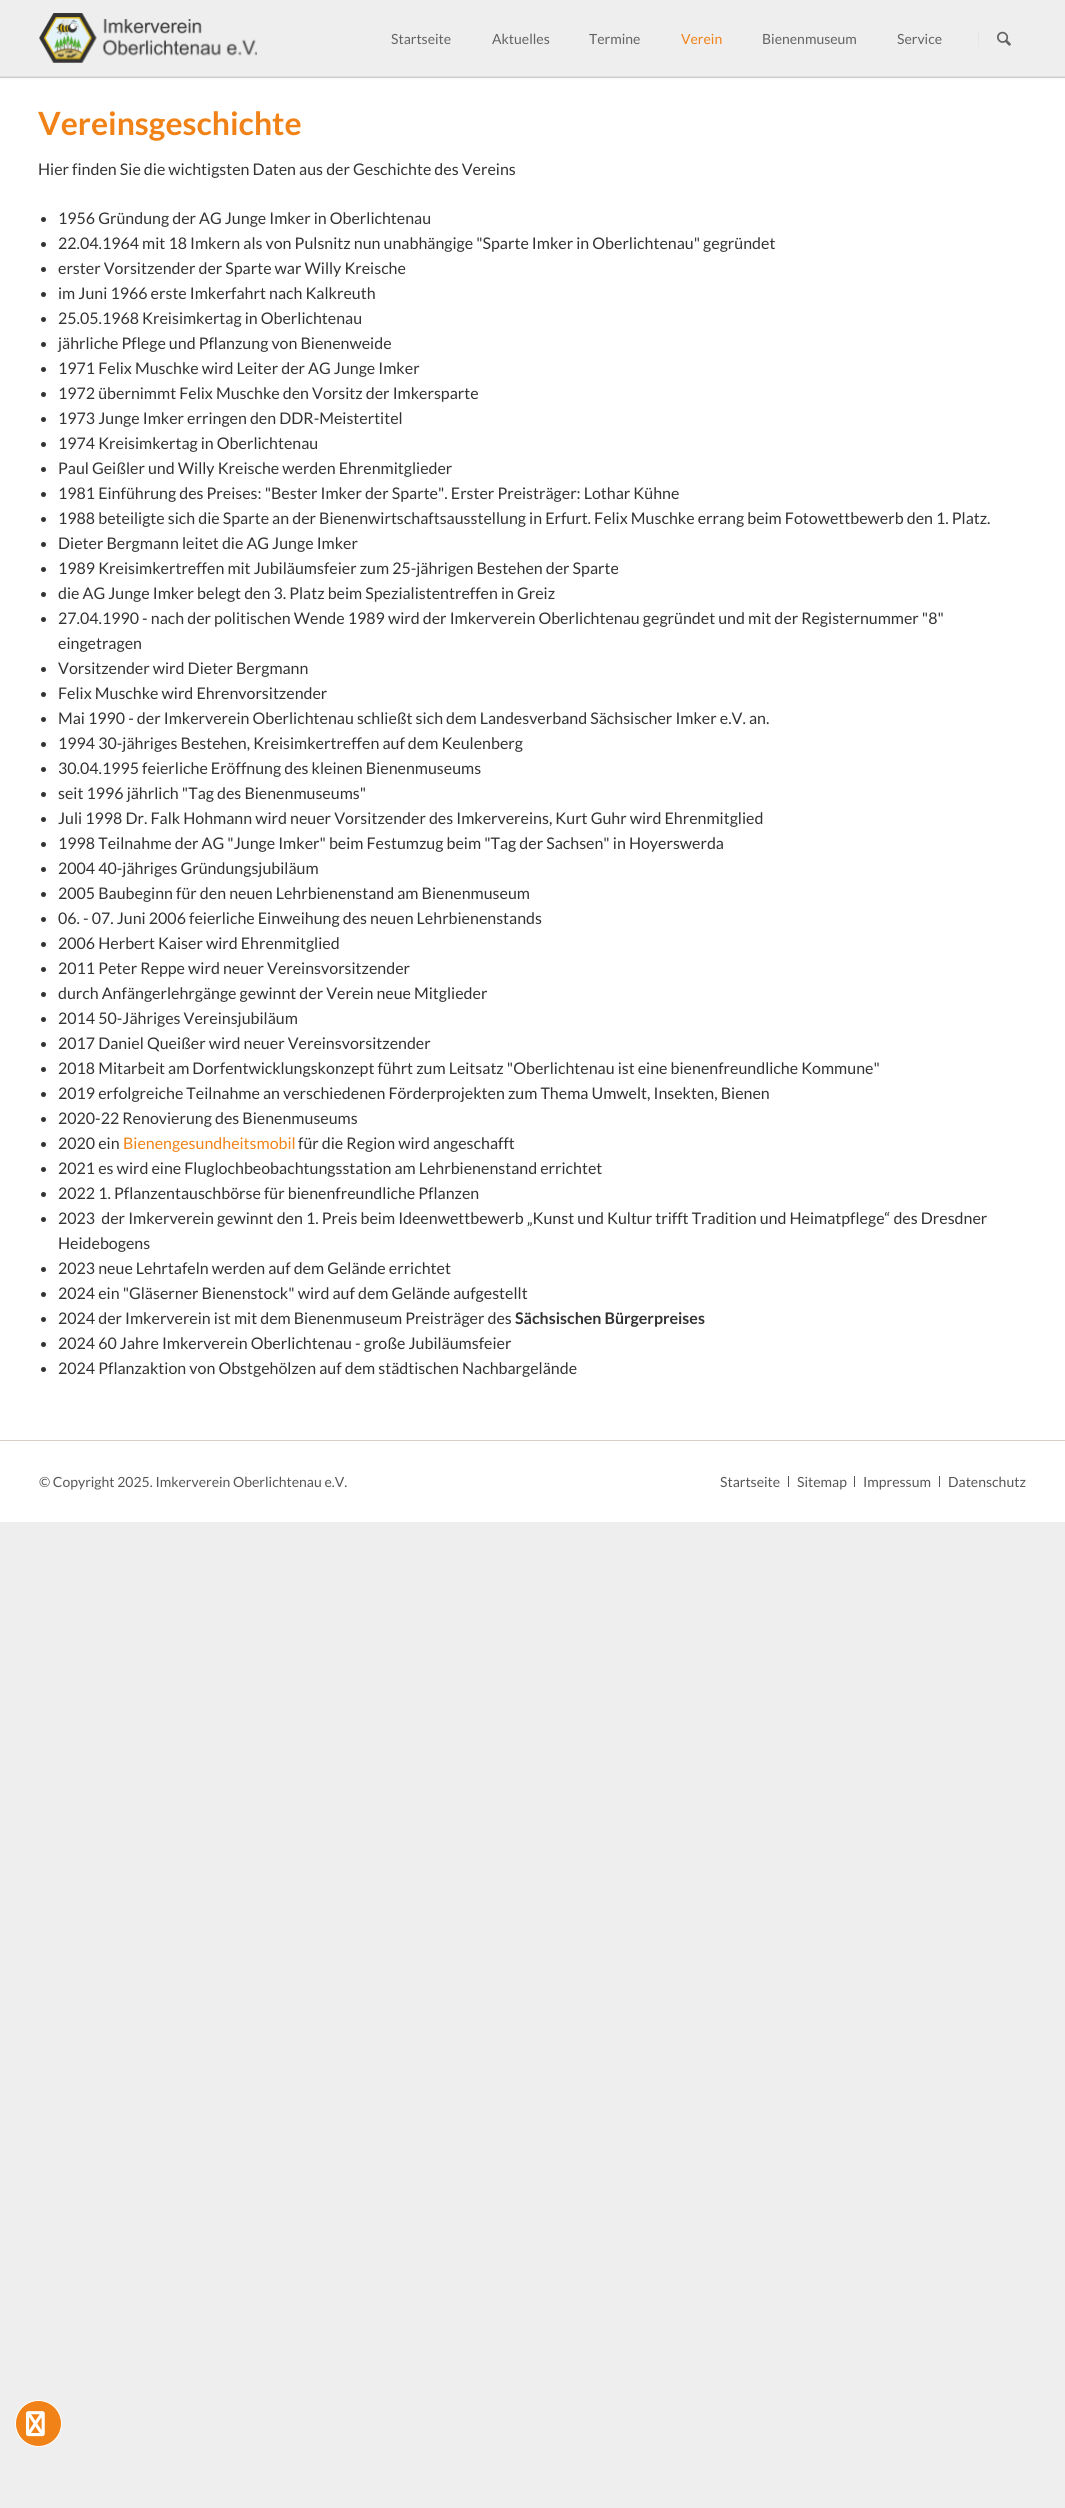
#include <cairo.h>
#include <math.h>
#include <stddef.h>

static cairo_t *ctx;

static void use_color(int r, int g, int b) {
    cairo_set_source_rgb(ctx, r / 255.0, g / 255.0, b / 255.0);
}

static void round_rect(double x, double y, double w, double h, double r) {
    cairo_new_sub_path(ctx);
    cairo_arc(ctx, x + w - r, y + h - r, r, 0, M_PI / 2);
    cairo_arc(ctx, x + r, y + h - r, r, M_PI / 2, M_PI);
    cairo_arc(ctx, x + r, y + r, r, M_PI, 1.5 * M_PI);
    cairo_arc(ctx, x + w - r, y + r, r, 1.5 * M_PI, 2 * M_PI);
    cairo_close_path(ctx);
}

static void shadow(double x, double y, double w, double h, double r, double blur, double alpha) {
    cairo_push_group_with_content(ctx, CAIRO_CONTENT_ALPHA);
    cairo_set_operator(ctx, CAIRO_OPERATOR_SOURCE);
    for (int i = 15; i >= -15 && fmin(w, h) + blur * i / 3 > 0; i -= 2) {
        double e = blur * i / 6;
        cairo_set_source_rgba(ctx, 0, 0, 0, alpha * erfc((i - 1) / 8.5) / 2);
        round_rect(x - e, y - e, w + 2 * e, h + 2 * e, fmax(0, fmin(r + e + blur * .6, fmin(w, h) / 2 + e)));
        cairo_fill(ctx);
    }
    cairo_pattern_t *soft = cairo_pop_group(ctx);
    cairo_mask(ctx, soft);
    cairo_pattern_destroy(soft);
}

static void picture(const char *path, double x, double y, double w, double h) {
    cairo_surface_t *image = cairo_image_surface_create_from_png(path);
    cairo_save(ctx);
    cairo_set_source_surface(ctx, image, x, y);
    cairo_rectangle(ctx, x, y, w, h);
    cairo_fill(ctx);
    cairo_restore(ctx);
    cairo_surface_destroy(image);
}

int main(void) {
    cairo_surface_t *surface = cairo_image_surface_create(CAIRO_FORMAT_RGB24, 1065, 2508);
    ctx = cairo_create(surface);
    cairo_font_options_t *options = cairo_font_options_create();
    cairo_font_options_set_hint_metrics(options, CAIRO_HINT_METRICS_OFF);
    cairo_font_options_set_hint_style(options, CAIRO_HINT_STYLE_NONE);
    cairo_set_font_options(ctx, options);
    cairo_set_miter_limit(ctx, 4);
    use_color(238, 238, 238);
    cairo_paint(ctx);
    use_color(255, 255, 255);
    cairo_rectangle(ctx, 0, 78, 1065, 1444);
    cairo_fill(ctx);
    use_color(222, 222, 222);
    cairo_rectangle(ctx, 0, 77, 1065, 1);
    cairo_fill(ctx);
    use_color(0, 0, 0);
    shadow(0, 1, 1065, 77, 0, 1, 0.1);
    use_color(238, 238, 238);
    cairo_rectangle(ctx, 0, 0, 1065, 76);
    cairo_fill(ctx);
    use_color(222, 222, 222);
    cairo_rectangle(ctx, 0, 76, 1065, 1);
    cairo_fill(ctx);
    picture("img1.png", 39, 13, 218, 50);
    cairo_select_font_face(ctx, "Lato", CAIRO_FONT_SLANT_NORMAL, CAIRO_FONT_WEIGHT_NORMAL);
    cairo_set_font_size(ctx, 14);
    use_color(99, 99, 99);
    cairo_move_to(ctx, 391, 44);
    cairo_show_text(ctx, "Startseite");
    cairo_move_to(ctx, 492, 44);
    cairo_show_text(ctx, "Aktuelles");
    cairo_move_to(ctx, 589, 44);
    cairo_show_text(ctx, "Termine");
    use_color(241, 130, 23);
    cairo_move_to(ctx, 681, 44);
    cairo_show_text(ctx, "Verein");
    use_color(99, 99, 99);
    cairo_move_to(ctx, 762, 44);
    cairo_show_text(ctx, "Bienenmuseum");
    cairo_move_to(ctx, 897, 44);
    cairo_show_text(ctx, "Service");
    use_color(232, 230, 227);
    cairo_rectangle(ctx, 978, 32, 1, 15);
    cairo_fill(ctx);
    picture("img2.png", 997, 31, 14, 15);
    cairo_select_font_face(ctx, "Lato", CAIRO_FONT_SLANT_NORMAL, CAIRO_FONT_WEIGHT_BOLD);
    cairo_set_font_size(ctx, 32);
    use_color(241, 130, 23);
    cairo_move_to(ctx, 38, 135);
    cairo_show_text(ctx, "Vereinsgeschichte");
    cairo_select_font_face(ctx, "Lato", CAIRO_FONT_SLANT_NORMAL, CAIRO_FONT_WEIGHT_NORMAL);
    cairo_set_font_size(ctx, 16);
    use_color(51, 51, 51);
    cairo_move_to(ctx, 38, 175);
    cairo_show_text(ctx, "Hier finden Sie die wichtigsten Daten aus der Geschichte des Vereins");
    cairo_new_path(ctx);
    cairo_arc(ctx, 43.5, 219.5, 2.5, 0, 2 * M_PI);
    cairo_fill(ctx);
    cairo_move_to(ctx, 58, 224);
    cairo_show_text(ctx, "1956 Gründung der AG Junge Imker in Oberlichtenau");
    cairo_new_path(ctx);
    cairo_arc(ctx, 43.5, 244.5, 2.5, 0, 2 * M_PI);
    cairo_fill(ctx);
    cairo_move_to(ctx, 58, 249);
    cairo_show_text(ctx, "22.04.1964 mit 18 Imkern als von Pulsnitz nun unabhängige \"Sparte Imker in Oberlichtenau\" gegründet");
    cairo_new_path(ctx);
    cairo_arc(ctx, 43.5, 269.5, 2.5, 0, 2 * M_PI);
    cairo_fill(ctx);
    cairo_move_to(ctx, 58, 274);
    cairo_show_text(ctx, "erster Vorsitzender der Sparte war Willy Kreische");
    cairo_new_path(ctx);
    cairo_arc(ctx, 43.5, 294.5, 2.5, 0, 2 * M_PI);
    cairo_fill(ctx);
    cairo_move_to(ctx, 58, 299);
    cairo_show_text(ctx, "im Juni 1966 erste Imkerfahrt nach Kalkreuth");
    cairo_new_path(ctx);
    cairo_arc(ctx, 43.5, 319.5, 2.5, 0, 2 * M_PI);
    cairo_fill(ctx);
    cairo_move_to(ctx, 58, 324);
    cairo_show_text(ctx, "25.05.1968 Kreisimkertag in Oberlichtenau");
    cairo_new_path(ctx);
    cairo_arc(ctx, 43.5, 344.5, 2.5, 0, 2 * M_PI);
    cairo_fill(ctx);
    cairo_move_to(ctx, 58, 349);
    cairo_show_text(ctx, "jährliche Pflege und Pflanzung von Bienenweide");
    cairo_new_path(ctx);
    cairo_arc(ctx, 43.5, 369.5, 2.5, 0, 2 * M_PI);
    cairo_fill(ctx);
    cairo_move_to(ctx, 58, 374);
    cairo_show_text(ctx, "1971 Felix Muschke wird Leiter der AG Junge Imker");
    cairo_new_path(ctx);
    cairo_arc(ctx, 43.5, 394.5, 2.5, 0, 2 * M_PI);
    cairo_fill(ctx);
    cairo_move_to(ctx, 58, 399);
    cairo_show_text(ctx, "1972 übernimmt Felix Muschke den Vorsitz der Imkersparte");
    cairo_new_path(ctx);
    cairo_arc(ctx, 43.5, 419.5, 2.5, 0, 2 * M_PI);
    cairo_fill(ctx);
    cairo_move_to(ctx, 58, 424);
    cairo_show_text(ctx, "1973 Junge Imker erringen den DDR-Meistertitel");
    cairo_new_path(ctx);
    cairo_arc(ctx, 43.5, 444.5, 2.5, 0, 2 * M_PI);
    cairo_fill(ctx);
    cairo_move_to(ctx, 58, 449);
    cairo_show_text(ctx, "1974 Kreisimkertag in Oberlichtenau");
    cairo_new_path(ctx);
    cairo_arc(ctx, 43.5, 469.5, 2.5, 0, 2 * M_PI);
    cairo_fill(ctx);
    cairo_move_to(ctx, 58, 474);
    cairo_show_text(ctx, "Paul Geißler und Willy Kreische werden Ehrenmitglieder");
    cairo_new_path(ctx);
    cairo_arc(ctx, 43.5, 494.5, 2.5, 0, 2 * M_PI);
    cairo_fill(ctx);
    cairo_move_to(ctx, 58, 499);
    cairo_show_text(ctx, "1981 Einführung des Preises: \"Bester Imker der Sparte\". Erster Preisträger: Lothar Kühne");
    cairo_new_path(ctx);
    cairo_arc(ctx, 43.5, 519.5, 2.5, 0, 2 * M_PI);
    cairo_fill(ctx);
    cairo_move_to(ctx, 58, 524);
    cairo_show_text(ctx, "1988 beteiligte sich die Sparte an der Bienenwirtschaftsausstellung in Erfurt. Felix Muschke errang beim Fotowettbewerb den 1. Platz.");
    cairo_new_path(ctx);
    cairo_arc(ctx, 43.5, 544.5, 2.5, 0, 2 * M_PI);
    cairo_fill(ctx);
    cairo_move_to(ctx, 58, 549);
    cairo_show_text(ctx, "Dieter Bergmann leitet die AG Junge Imker");
    cairo_new_path(ctx);
    cairo_arc(ctx, 43.5, 569.5, 2.5, 0, 2 * M_PI);
    cairo_fill(ctx);
    cairo_move_to(ctx, 58, 574);
    cairo_show_text(ctx, "1989 Kreisimkertreffen mit Jubiläumsfeier zum 25-jährigen Bestehen der Sparte");
    cairo_new_path(ctx);
    cairo_arc(ctx, 43.5, 594.5, 2.5, 0, 2 * M_PI);
    cairo_fill(ctx);
    cairo_move_to(ctx, 58, 599);
    cairo_show_text(ctx, "die AG Junge Imker belegt den 3. Platz beim Spezialistentreffen in Greiz");
    cairo_new_path(ctx);
    cairo_arc(ctx, 43.5, 619.5, 2.5, 0, 2 * M_PI);
    cairo_fill(ctx);
    cairo_move_to(ctx, 58, 624);
    cairo_show_text(ctx, "27.04.1990 - nach der politischen Wende 1989 wird der Imkerverein Oberlichtenau gegründet und mit der Registernummer \"8\"");
    cairo_move_to(ctx, 58, 649);
    cairo_show_text(ctx, "eingetragen");
    cairo_new_path(ctx);
    cairo_arc(ctx, 43.5, 669.5, 2.5, 0, 2 * M_PI);
    cairo_fill(ctx);
    cairo_move_to(ctx, 58, 674);
    cairo_show_text(ctx, "Vorsitzender wird Dieter Bergmann");
    cairo_new_path(ctx);
    cairo_arc(ctx, 43.5, 694.5, 2.5, 0, 2 * M_PI);
    cairo_fill(ctx);
    cairo_move_to(ctx, 58, 699);
    cairo_show_text(ctx, "Felix Muschke wird Ehrenvorsitzender");
    cairo_new_path(ctx);
    cairo_arc(ctx, 43.5, 719.5, 2.5, 0, 2 * M_PI);
    cairo_fill(ctx);
    cairo_move_to(ctx, 58, 724);
    cairo_show_text(ctx, "Mai 1990 - der Imkerverein Oberlichtenau schließt sich dem Landesverband Sächsischer Imker e.V. an.");
    cairo_new_path(ctx);
    cairo_arc(ctx, 43.5, 744.5, 2.5, 0, 2 * M_PI);
    cairo_fill(ctx);
    cairo_move_to(ctx, 58, 749);
    cairo_show_text(ctx, "1994 30-jähriges Bestehen, Kreisimkertreffen auf dem Keulenberg");
    cairo_new_path(ctx);
    cairo_arc(ctx, 43.5, 769.5, 2.5, 0, 2 * M_PI);
    cairo_fill(ctx);
    cairo_move_to(ctx, 58, 774);
    cairo_show_text(ctx, "30.04.1995 feierliche Eröffnung des kleinen Bienenmuseums");
    cairo_new_path(ctx);
    cairo_arc(ctx, 43.5, 794.5, 2.5, 0, 2 * M_PI);
    cairo_fill(ctx);
    cairo_move_to(ctx, 58, 799);
    cairo_show_text(ctx, "seit 1996 jährlich \"Tag des Bienenmuseums\"");
    cairo_new_path(ctx);
    cairo_arc(ctx, 43.5, 819.5, 2.5, 0, 2 * M_PI);
    cairo_fill(ctx);
    cairo_move_to(ctx, 58, 824);
    cairo_show_text(ctx, "Juli 1998 Dr. Falk Hohmann wird neuer Vorsitzender des Imkervereins, Kurt Guhr wird Ehrenmitglied");
    cairo_new_path(ctx);
    cairo_arc(ctx, 43.5, 844.5, 2.5, 0, 2 * M_PI);
    cairo_fill(ctx);
    cairo_move_to(ctx, 58, 849);
    cairo_show_text(ctx, "1998 Teilnahme der AG \"Junge Imker\" beim Festumzug beim \"Tag der Sachsen\" in Hoyerswerda");
    cairo_new_path(ctx);
    cairo_arc(ctx, 43.5, 869.5, 2.5, 0, 2 * M_PI);
    cairo_fill(ctx);
    cairo_move_to(ctx, 58, 874);
    cairo_show_text(ctx, "2004 40-jähriges Gründungsjubiläum");
    cairo_new_path(ctx);
    cairo_arc(ctx, 43.5, 894.5, 2.5, 0, 2 * M_PI);
    cairo_fill(ctx);
    cairo_move_to(ctx, 58, 899);
    cairo_show_text(ctx, "2005 Baubeginn für den neuen Lehrbienenstand am Bienenmuseum");
    cairo_new_path(ctx);
    cairo_arc(ctx, 43.5, 919.5, 2.5, 0, 2 * M_PI);
    cairo_fill(ctx);
    cairo_move_to(ctx, 58, 924);
    cairo_show_text(ctx, "06. - 07. Juni 2006 feierliche Einweihung des neuen Lehrbienenstands");
    cairo_new_path(ctx);
    cairo_arc(ctx, 43.5, 944.5, 2.5, 0, 2 * M_PI);
    cairo_fill(ctx);
    cairo_move_to(ctx, 58, 949);
    cairo_show_text(ctx, "2006 Herbert Kaiser wird Ehrenmitglied");
    cairo_new_path(ctx);
    cairo_arc(ctx, 43.5, 969.5, 2.5, 0, 2 * M_PI);
    cairo_fill(ctx);
    cairo_move_to(ctx, 58, 974);
    cairo_show_text(ctx, "2011 Peter Reppe wird neuer Vereinsvorsitzender");
    cairo_new_path(ctx);
    cairo_arc(ctx, 43.5, 994.5, 2.5, 0, 2 * M_PI);
    cairo_fill(ctx);
    cairo_move_to(ctx, 58, 999);
    cairo_show_text(ctx, "durch Anfängerlehrgänge gewinnt der Verein neue Mitglieder");
    cairo_new_path(ctx);
    cairo_arc(ctx, 43.5, 1019.5, 2.5, 0, 2 * M_PI);
    cairo_fill(ctx);
    cairo_move_to(ctx, 58, 1024);
    cairo_show_text(ctx, "2014 50-Jähriges Vereinsjubiläum");
    cairo_new_path(ctx);
    cairo_arc(ctx, 43.5, 1044.5, 2.5, 0, 2 * M_PI);
    cairo_fill(ctx);
    cairo_move_to(ctx, 58, 1049);
    cairo_show_text(ctx, "2017 Daniel Queißer wird neuer Vereinsvorsitzender");
    cairo_new_path(ctx);
    cairo_arc(ctx, 43.5, 1069.5, 2.5, 0, 2 * M_PI);
    cairo_fill(ctx);
    cairo_move_to(ctx, 58, 1074);
    cairo_show_text(ctx, "2018 Mitarbeit am Dorfentwicklungskonzept führt zum Leitsatz \"Oberlichtenau ist eine bienenfreundliche Kommune\"");
    cairo_new_path(ctx);
    cairo_arc(ctx, 43.5, 1094.5, 2.5, 0, 2 * M_PI);
    cairo_fill(ctx);
    cairo_move_to(ctx, 58, 1099);
    cairo_show_text(ctx, "2019 erfolgreiche Teilnahme an verschiedenen Förderprojekten zum Thema Umwelt, Insekten, Bienen");
    cairo_new_path(ctx);
    cairo_arc(ctx, 43.5, 1119.5, 2.5, 0, 2 * M_PI);
    cairo_fill(ctx);
    cairo_move_to(ctx, 58, 1124);
    cairo_show_text(ctx, "2020-22 Renovierung des Bienenmuseums");
    cairo_new_path(ctx);
    cairo_arc(ctx, 43.5, 1144.5, 2.5, 0, 2 * M_PI);
    cairo_fill(ctx);
    cairo_move_to(ctx, 58, 1149);
    cairo_show_text(ctx, "2020 ein");
    use_color(241, 130, 23);
    cairo_move_to(ctx, 123, 1149);
    cairo_show_text(ctx, "Bienengesundheitsmobil");
    use_color(51, 51, 51);
    cairo_move_to(ctx, 298, 1149);
    cairo_show_text(ctx, "für die Region wird angeschafft");
    cairo_new_path(ctx);
    cairo_arc(ctx, 43.5, 1169.5, 2.5, 0, 2 * M_PI);
    cairo_fill(ctx);
    cairo_move_to(ctx, 58, 1174);
    cairo_show_text(ctx, "2021 es wird eine Fluglochbeobachtungsstation am Lehrbienenstand errichtet");
    cairo_new_path(ctx);
    cairo_arc(ctx, 43.5, 1194.5, 2.5, 0, 2 * M_PI);
    cairo_fill(ctx);
    cairo_move_to(ctx, 58, 1199);
    cairo_show_text(ctx, "2022 1. Pflanzentauschbörse für bienenfreundliche Pflanzen");
    cairo_new_path(ctx);
    cairo_arc(ctx, 43.5, 1219.5, 2.5, 0, 2 * M_PI);
    cairo_fill(ctx);
    cairo_move_to(ctx, 58, 1224);
    cairo_show_text(ctx, "2023  der Imkerverein gewinnt den 1. Preis beim Ideenwettbewerb „Kunst und Kultur trifft Tradition und Heimatpflege“ des Dresdner");
    cairo_move_to(ctx, 58, 1249);
    cairo_show_text(ctx, "Heidebogens");
    cairo_new_path(ctx);
    cairo_arc(ctx, 43.5, 1269.5, 2.5, 0, 2 * M_PI);
    cairo_fill(ctx);
    cairo_move_to(ctx, 58, 1274);
    cairo_show_text(ctx, "2023 neue Lehrtafeln werden auf dem Gelände errichtet");
    cairo_new_path(ctx);
    cairo_arc(ctx, 43.5, 1294.5, 2.5, 0, 2 * M_PI);
    cairo_fill(ctx);
    cairo_move_to(ctx, 58, 1299);
    cairo_show_text(ctx, "2024 ein \"Gläserner Bienenstock\" wird auf dem Gelände aufgestellt");
    cairo_new_path(ctx);
    cairo_arc(ctx, 43.5, 1319.5, 2.5, 0, 2 * M_PI);
    cairo_fill(ctx);
    cairo_move_to(ctx, 58, 1324);
    cairo_show_text(ctx, "2024 der Imkerverein ist mit dem Bienenmuseum Preisträger des");
    cairo_select_font_face(ctx, "Lato", CAIRO_FONT_SLANT_NORMAL, CAIRO_FONT_WEIGHT_BOLD);
    cairo_move_to(ctx, 515, 1324);
    cairo_show_text(ctx, "Sächsischen Bürgerpreises");
    cairo_new_path(ctx);
    cairo_arc(ctx, 43.5, 1344.5, 2.5, 0, 2 * M_PI);
    cairo_fill(ctx);
    cairo_select_font_face(ctx, "Lato", CAIRO_FONT_SLANT_NORMAL, CAIRO_FONT_WEIGHT_NORMAL);
    cairo_move_to(ctx, 58, 1349);
    cairo_show_text(ctx, "2024 60 Jahre Imkerverein Oberlichtenau - große Jubiläumsfeier");
    cairo_new_path(ctx);
    cairo_arc(ctx, 43.5, 1369.5, 2.5, 0, 2 * M_PI);
    cairo_fill(ctx);
    cairo_move_to(ctx, 58, 1374);
    cairo_show_text(ctx, "2024 Pflanzaktion von Obstgehölzen auf dem städtischen Nachbargelände");
    use_color(241, 130, 23);
    cairo_new_path(ctx);
    cairo_arc(ctx, 38.5, 2423.5, 23, 0, 2 * M_PI);
    cairo_fill_preserve(ctx);
    use_color(255, 255, 255);
    cairo_set_line_width(ctx, 1);
    cairo_stroke(ctx);
    picture("img3.png", 26, 2411, 19, 26);
    use_color(215, 207, 200);
    cairo_rectangle(ctx, 0, 1440, 1065, 1);
    cairo_fill(ctx);
    cairo_set_font_size(ctx, 14);
    use_color(87, 87, 87);
    cairo_move_to(ctx, 39, 1487);
    cairo_show_text(ctx, "© Copyright 2025. Imkerverein Oberlichtenau e.V.");
    cairo_move_to(ctx, 720, 1487);
    cairo_show_text(ctx, "Startseite");
    cairo_rectangle(ctx, 788, 1476, 1, 11);
    cairo_fill(ctx);
    cairo_move_to(ctx, 797, 1487);
    cairo_show_text(ctx, "Sitemap");
    cairo_rectangle(ctx, 854, 1476, 1, 11);
    cairo_fill(ctx);
    cairo_move_to(ctx, 863, 1487);
    cairo_show_text(ctx, "Impressum");
    cairo_rectangle(ctx, 939, 1476, 1, 11);
    cairo_fill(ctx);
    cairo_move_to(ctx, 948, 1487);
    cairo_show_text(ctx, "Datenschutz");
    cairo_surface_write_to_png(surface, "result.png");
    cairo_font_options_destroy(options);
    cairo_destroy(ctx);
    cairo_surface_destroy(surface);
    return 0;
}
